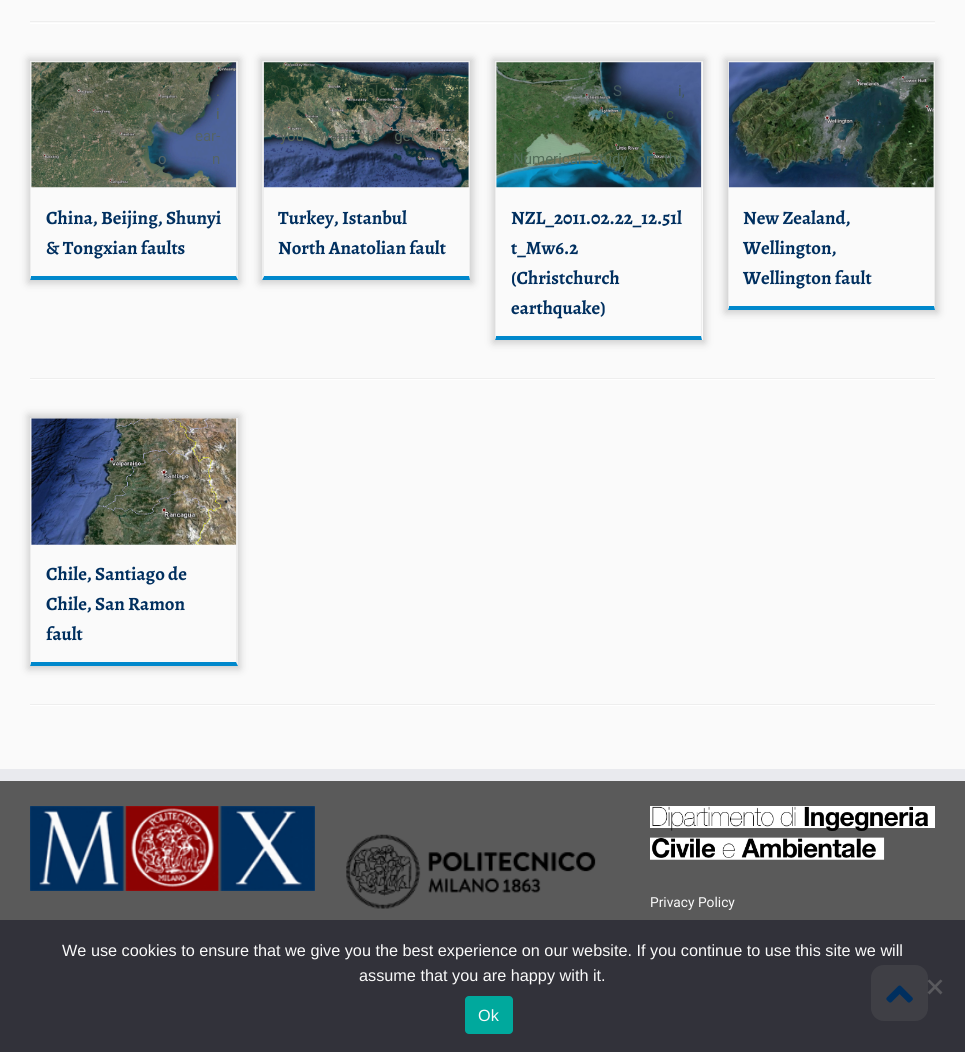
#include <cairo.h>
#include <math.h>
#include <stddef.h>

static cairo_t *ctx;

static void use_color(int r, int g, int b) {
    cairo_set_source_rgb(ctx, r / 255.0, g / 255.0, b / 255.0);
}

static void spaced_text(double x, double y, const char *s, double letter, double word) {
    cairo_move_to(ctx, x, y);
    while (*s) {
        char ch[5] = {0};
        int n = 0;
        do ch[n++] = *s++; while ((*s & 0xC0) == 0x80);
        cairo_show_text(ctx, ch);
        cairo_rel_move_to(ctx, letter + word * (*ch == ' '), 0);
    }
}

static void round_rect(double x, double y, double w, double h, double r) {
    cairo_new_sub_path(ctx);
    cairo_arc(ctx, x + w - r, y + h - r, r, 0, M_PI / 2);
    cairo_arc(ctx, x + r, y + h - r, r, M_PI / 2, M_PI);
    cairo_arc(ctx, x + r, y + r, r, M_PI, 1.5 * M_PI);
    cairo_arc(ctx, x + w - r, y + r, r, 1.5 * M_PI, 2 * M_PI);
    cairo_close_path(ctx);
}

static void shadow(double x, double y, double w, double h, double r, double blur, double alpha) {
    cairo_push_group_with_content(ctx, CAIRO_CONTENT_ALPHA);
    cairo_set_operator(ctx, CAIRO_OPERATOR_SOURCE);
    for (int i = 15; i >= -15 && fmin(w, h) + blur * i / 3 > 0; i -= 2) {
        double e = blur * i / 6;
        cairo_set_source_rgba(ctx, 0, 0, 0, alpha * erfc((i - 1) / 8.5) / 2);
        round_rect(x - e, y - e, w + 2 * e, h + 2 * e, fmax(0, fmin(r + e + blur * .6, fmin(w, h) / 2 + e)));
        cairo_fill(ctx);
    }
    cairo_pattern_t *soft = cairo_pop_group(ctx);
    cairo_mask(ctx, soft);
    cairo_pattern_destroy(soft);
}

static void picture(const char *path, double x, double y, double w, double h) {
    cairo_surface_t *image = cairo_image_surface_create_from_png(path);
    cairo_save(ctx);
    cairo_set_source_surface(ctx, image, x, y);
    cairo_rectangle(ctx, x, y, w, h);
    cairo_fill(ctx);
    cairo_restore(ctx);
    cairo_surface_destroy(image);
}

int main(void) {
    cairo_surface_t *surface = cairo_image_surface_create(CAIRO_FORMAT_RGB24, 965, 1052);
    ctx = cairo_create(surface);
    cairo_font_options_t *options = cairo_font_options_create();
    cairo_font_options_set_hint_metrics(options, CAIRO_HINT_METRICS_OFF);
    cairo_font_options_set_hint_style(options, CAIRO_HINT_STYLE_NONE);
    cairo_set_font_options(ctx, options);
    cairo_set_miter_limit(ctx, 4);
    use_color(250, 250, 250);
    cairo_paint(ctx);
    use_color(238, 238, 238);
    cairo_rectangle(ctx, 30, 21, 905, 1);
    cairo_fill(ctx);
    use_color(255, 255, 255);
    cairo_rectangle(ctx, 30, 23, 905, 1);
    cairo_fill(ctx);
    cairo_save(ctx);
    cairo_set_fill_rule(ctx, CAIRO_FILL_RULE_EVEN_ODD);
    cairo_new_path(ctx);
    cairo_move_to(ctx, 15, 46);
    cairo_line_to(ctx, 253, 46);
    cairo_line_to(ctx, 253, 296);
    cairo_line_to(ctx, 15, 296);
    cairo_close_path(ctx);
    cairo_move_to(ctx, 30, 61);
    cairo_line_to(ctx, 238, 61);
    cairo_line_to(ctx, 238, 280);
    cairo_line_to(ctx, 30, 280);
    cairo_close_path(ctx);
    cairo_clip(ctx);
    use_color(204, 204, 204);
    shadow(28, 59, 212, 224, 0, 4, 1);
    cairo_restore(ctx);
    use_color(238, 238, 238);
    cairo_rectangle(ctx, 30, 61, 208, 1);
    cairo_fill(ctx);
    cairo_new_path(ctx);
    cairo_move_to(ctx, 238, 61);
    cairo_line_to(ctx, 238, 280);
    cairo_line_to(ctx, 236, 276);
    cairo_line_to(ctx, 236, 62);
    cairo_close_path(ctx);
    cairo_fill(ctx);
    use_color(0, 136, 204);
    cairo_new_path(ctx);
    cairo_move_to(ctx, 238, 280);
    cairo_line_to(ctx, 30, 280);
    cairo_line_to(ctx, 31, 276);
    cairo_line_to(ctx, 236, 276);
    cairo_close_path(ctx);
    cairo_fill(ctx);
    use_color(238, 238, 238);
    cairo_new_path(ctx);
    cairo_move_to(ctx, 30, 280);
    cairo_line_to(ctx, 30, 61);
    cairo_line_to(ctx, 31, 62);
    cairo_line_to(ctx, 31, 276);
    cairo_close_path(ctx);
    cairo_fill(ctx);
    picture("img1.png", 31, 62, 206, 126);
    cairo_select_font_face(ctx, "Roboto", CAIRO_FONT_SLANT_NORMAL, CAIRO_FONT_WEIGHT_NORMAL);
    cairo_set_font_size(ctx, 15);
    use_color(92, 99, 83);
    spaced_text(52, 96, ".", 0, 5);
    spaced_text(216, 96, ".", 0, 5);
    use_color(86, 98, 87);
    spaced_text(216, 119, "i", 0, 9);
    use_color(84, 99, 102);
    spaced_text(195, 141, "ear-", 0, 3);
    spaced_text(158, 164, "o", 0, 7);
    spaced_text(212, 164, "n", 0, 7);
    cairo_select_font_face(ctx, "Alegreya", CAIRO_FONT_SLANT_NORMAL, CAIRO_FONT_WEIGHT_BOLD);
    cairo_set_font_size(ctx, 18.75);
    use_color(0, 47, 95);
    cairo_move_to(ctx, 46, 224);
    cairo_show_text(ctx, "China, Beijing, Shunyi");
    cairo_move_to(ctx, 46, 254);
    cairo_show_text(ctx, "& Tongxian faults");
    cairo_save(ctx);
    cairo_set_fill_rule(ctx, CAIRO_FILL_RULE_EVEN_ODD);
    cairo_new_path(ctx);
    cairo_move_to(ctx, 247, 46);
    cairo_line_to(ctx, 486, 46);
    cairo_line_to(ctx, 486, 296);
    cairo_line_to(ctx, 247, 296);
    cairo_close_path(ctx);
    cairo_move_to(ctx, 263, 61);
    cairo_line_to(ctx, 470, 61);
    cairo_line_to(ctx, 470, 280);
    cairo_line_to(ctx, 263, 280);
    cairo_close_path(ctx);
    cairo_clip(ctx);
    use_color(204, 204, 204);
    shadow(260, 59, 213, 224, 0, 4, 1);
    cairo_restore(ctx);
    use_color(238, 238, 238);
    cairo_rectangle(ctx, 263, 61, 207, 1);
    cairo_fill(ctx);
    cairo_new_path(ctx);
    cairo_move_to(ctx, 470, 61);
    cairo_line_to(ctx, 470, 280);
    cairo_line_to(ctx, 469, 276);
    cairo_line_to(ctx, 469, 62);
    cairo_close_path(ctx);
    cairo_fill(ctx);
    use_color(0, 136, 204);
    cairo_new_path(ctx);
    cairo_move_to(ctx, 470, 280);
    cairo_line_to(ctx, 262, 280);
    cairo_line_to(ctx, 264, 276);
    cairo_line_to(ctx, 469, 276);
    cairo_close_path(ctx);
    cairo_fill(ctx);
    use_color(238, 238, 238);
    cairo_new_path(ctx);
    cairo_move_to(ctx, 262, 280);
    cairo_line_to(ctx, 262, 61);
    cairo_line_to(ctx, 264, 62);
    cairo_line_to(ctx, 264, 276);
    cairo_close_path(ctx);
    cairo_fill(ctx);
    picture("img2.png", 263, 62, 206, 126);
    cairo_select_font_face(ctx, "Roboto", CAIRO_FONT_SLANT_NORMAL, CAIRO_FONT_WEIGHT_NORMAL);
    cairo_set_font_size(ctx, 15);
    use_color(62, 83, 61);
    spaced_text(280, 96, "Data available in the", 0, 12.5);
    use_color(92, 99, 83);
    spaced_text(423, 119, ".", 0, 12);
    use_color(86, 98, 87);
    spaced_text(280, 141, "you want to get the", 0, 11);
    cairo_select_font_face(ctx, "Alegreya", CAIRO_FONT_SLANT_NORMAL, CAIRO_FONT_WEIGHT_BOLD);
    cairo_set_font_size(ctx, 18.75);
    use_color(0, 47, 95);
    cairo_move_to(ctx, 278, 224);
    cairo_show_text(ctx, "Turkey, Istanbul");
    cairo_move_to(ctx, 278, 254);
    cairo_show_text(ctx, "North Anatolian fault");
    cairo_save(ctx);
    cairo_set_fill_rule(ctx, CAIRO_FILL_RULE_EVEN_ODD);
    cairo_new_path(ctx);
    cairo_move_to(ctx, 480, 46);
    cairo_line_to(ctx, 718, 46);
    cairo_line_to(ctx, 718, 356);
    cairo_line_to(ctx, 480, 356);
    cairo_close_path(ctx);
    cairo_move_to(ctx, 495, 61);
    cairo_line_to(ctx, 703, 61);
    cairo_line_to(ctx, 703, 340);
    cairo_line_to(ctx, 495, 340);
    cairo_close_path(ctx);
    cairo_clip(ctx);
    use_color(204, 204, 204);
    shadow(493, 59, 212, 284, 0, 4, 1);
    cairo_restore(ctx);
    use_color(238, 238, 238);
    cairo_rectangle(ctx, 495, 61, 208, 1);
    cairo_fill(ctx);
    cairo_new_path(ctx);
    cairo_move_to(ctx, 702, 61);
    cairo_line_to(ctx, 702, 340);
    cairo_line_to(ctx, 701, 336);
    cairo_line_to(ctx, 701, 62);
    cairo_close_path(ctx);
    cairo_fill(ctx);
    use_color(0, 136, 204);
    cairo_new_path(ctx);
    cairo_move_to(ctx, 702, 340);
    cairo_line_to(ctx, 495, 340);
    cairo_line_to(ctx, 496, 336);
    cairo_line_to(ctx, 701, 336);
    cairo_close_path(ctx);
    cairo_fill(ctx);
    use_color(238, 238, 238);
    cairo_new_path(ctx);
    cairo_move_to(ctx, 495, 340);
    cairo_line_to(ctx, 495, 61);
    cairo_line_to(ctx, 496, 62);
    cairo_line_to(ctx, 496, 336);
    cairo_close_path(ctx);
    cairo_fill(ctx);
    picture("img3.png", 496, 62, 206, 126);
    cairo_select_font_face(ctx, "Roboto", CAIRO_FONT_SLANT_NORMAL, CAIRO_FONT_WEIGHT_NORMAL);
    cairo_set_font_size(ctx, 15);
    use_color(67, 88, 92);
    spaced_text(613, 96, "S", 0, 1);
    spaced_text(678, 96, "i,", 0, 1);
    use_color(56, 84, 71);
    spaced_text(666, 119, "c", 0, 5);
    use_color(82, 109, 89);
    spaced_text(513, 164, "Numerical study on the", 0, 6);
    cairo_select_font_face(ctx, "Alegreya", CAIRO_FONT_SLANT_NORMAL, CAIRO_FONT_WEIGHT_BOLD);
    cairo_set_font_size(ctx, 18.75);
    use_color(0, 47, 95);
    cairo_move_to(ctx, 511, 224);
    cairo_show_text(ctx, "NZL_2011.02.22_12.51l");
    cairo_move_to(ctx, 511, 254);
    cairo_show_text(ctx, "t_Mw6.2");
    cairo_move_to(ctx, 511, 284);
    cairo_show_text(ctx, "(Christchurch");
    cairo_move_to(ctx, 511, 314);
    cairo_show_text(ctx, "earthquake)");
    cairo_save(ctx);
    cairo_set_fill_rule(ctx, CAIRO_FILL_RULE_EVEN_ODD);
    cairo_new_path(ctx);
    cairo_move_to(ctx, 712, 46);
    cairo_line_to(ctx, 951, 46);
    cairo_line_to(ctx, 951, 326);
    cairo_line_to(ctx, 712, 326);
    cairo_close_path(ctx);
    cairo_move_to(ctx, 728, 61);
    cairo_line_to(ctx, 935, 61);
    cairo_line_to(ctx, 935, 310);
    cairo_line_to(ctx, 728, 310);
    cairo_close_path(ctx);
    cairo_clip(ctx);
    use_color(204, 204, 204);
    shadow(725, 59, 213, 254, 0, 4, 1);
    cairo_restore(ctx);
    use_color(238, 238, 238);
    cairo_rectangle(ctx, 728, 61, 207, 1);
    cairo_fill(ctx);
    cairo_new_path(ctx);
    cairo_move_to(ctx, 935, 61);
    cairo_line_to(ctx, 935, 310);
    cairo_line_to(ctx, 934, 306);
    cairo_line_to(ctx, 934, 62);
    cairo_close_path(ctx);
    cairo_fill(ctx);
    use_color(0, 136, 204);
    cairo_new_path(ctx);
    cairo_move_to(ctx, 935, 310);
    cairo_line_to(ctx, 728, 310);
    cairo_line_to(ctx, 729, 306);
    cairo_line_to(ctx, 934, 306);
    cairo_close_path(ctx);
    cairo_fill(ctx);
    use_color(238, 238, 238);
    cairo_new_path(ctx);
    cairo_move_to(ctx, 728, 310);
    cairo_line_to(ctx, 728, 61);
    cairo_line_to(ctx, 729, 62);
    cairo_line_to(ctx, 729, 306);
    cairo_close_path(ctx);
    cairo_fill(ctx);
    picture("img4.png", 728, 62, 206, 126);
    use_color(0, 47, 95);
    cairo_move_to(ctx, 743, 224);
    cairo_show_text(ctx, "New Zealand,");
    cairo_move_to(ctx, 743, 254);
    cairo_show_text(ctx, "Wellington,");
    cairo_move_to(ctx, 743, 284);
    cairo_show_text(ctx, "Wellington fault");
    use_color(238, 238, 238);
    cairo_rectangle(ctx, 30, 378, 905, 1);
    cairo_fill(ctx);
    use_color(255, 255, 255);
    cairo_rectangle(ctx, 30, 379, 905, 1);
    cairo_fill(ctx);
    cairo_save(ctx);
    cairo_set_fill_rule(ctx, CAIRO_FILL_RULE_EVEN_ODD);
    cairo_new_path(ctx);
    cairo_move_to(ctx, 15, 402);
    cairo_line_to(ctx, 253, 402);
    cairo_line_to(ctx, 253, 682);
    cairo_line_to(ctx, 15, 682);
    cairo_close_path(ctx);
    cairo_move_to(ctx, 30, 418);
    cairo_line_to(ctx, 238, 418);
    cairo_line_to(ctx, 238, 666);
    cairo_line_to(ctx, 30, 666);
    cairo_close_path(ctx);
    cairo_clip(ctx);
    use_color(204, 204, 204);
    shadow(28, 415, 212, 254, 0, 4, 1);
    cairo_restore(ctx);
    use_color(238, 238, 238);
    cairo_rectangle(ctx, 30, 418, 208, 1);
    cairo_fill(ctx);
    cairo_new_path(ctx);
    cairo_move_to(ctx, 238, 418);
    cairo_line_to(ctx, 238, 666);
    cairo_line_to(ctx, 236, 662);
    cairo_line_to(ctx, 236, 419);
    cairo_close_path(ctx);
    cairo_fill(ctx);
    use_color(0, 136, 204);
    cairo_new_path(ctx);
    cairo_move_to(ctx, 238, 666);
    cairo_line_to(ctx, 30, 666);
    cairo_line_to(ctx, 31, 662);
    cairo_line_to(ctx, 236, 662);
    cairo_close_path(ctx);
    cairo_fill(ctx);
    use_color(238, 238, 238);
    cairo_new_path(ctx);
    cairo_move_to(ctx, 30, 666);
    cairo_line_to(ctx, 30, 418);
    cairo_line_to(ctx, 31, 419);
    cairo_line_to(ctx, 31, 662);
    cairo_close_path(ctx);
    cairo_fill(ctx);
    picture("img5.png", 31, 418, 206, 127);
    use_color(0, 47, 95);
    cairo_move_to(ctx, 46, 580);
    cairo_show_text(ctx, "Chile, Santiago de");
    cairo_move_to(ctx, 46, 610);
    cairo_show_text(ctx, "Chile, San Ramon");
    cairo_move_to(ctx, 46, 640);
    cairo_show_text(ctx, "fault");
    use_color(238, 238, 238);
    cairo_rectangle(ctx, 30, 704, 905, 1);
    cairo_fill(ctx);
    use_color(255, 255, 255);
    cairo_rectangle(ctx, 30, 705, 905, 1);
    cairo_fill(ctx);
    use_color(90, 90, 90);
    cairo_rectangle(ctx, 0, 781, 965, 139);
    cairo_fill(ctx);
    use_color(233, 234, 238);
    cairo_rectangle(ctx, 0, 769, 965, 12);
    cairo_fill(ctx);
    picture("img6.png", 30, 806, 285, 85);
    picture("img7.png", 346, 834, 250, 75);
    picture("img8.png", 650, 806, 285, 54);
    cairo_select_font_face(ctx, "Roboto", CAIRO_FONT_SLANT_NORMAL, CAIRO_FONT_WEIGHT_NORMAL);
    cairo_set_font_size(ctx, 13.75);
    use_color(250, 250, 250);
    cairo_move_to(ctx, 650, 907);
    cairo_show_text(ctx, "Privacy Policy");
    use_color(50, 50, 58);
    cairo_rectangle(ctx, 0, 920, 965, 132);
    cairo_fill(ctx);
    cairo_select_font_face(ctx, "Liberation Sans", CAIRO_FONT_SLANT_NORMAL, CAIRO_FONT_WEIGHT_NORMAL);
    cairo_set_font_size(ctx, 16.25);
    use_color(250, 250, 250);
    cairo_move_to(ctx, 62, 956);
    cairo_show_text(ctx, "We use cookies to ensure that we give you the best experience on our website. If you continue to use this site we will");
    cairo_move_to(ctx, 359, 981);
    cairo_show_text(ctx, "assume that you are happy with it.");
    use_color(89, 89, 93);
    cairo_new_path(ctx);
    cairo_move_to(ctx, 940.5, 979.5);
    cairo_line_to(ctx, 942.5, 981);
    cairo_line_to(ctx, 929.5, 994.5);
    cairo_line_to(ctx, 927.5, 992.5);
    cairo_close_path(ctx);
    cairo_fill(ctx);
    cairo_new_path(ctx);
    cairo_move_to(ctx, 927.5, 981);
    cairo_line_to(ctx, 929.5, 979.5);
    cairo_line_to(ctx, 942.5, 992.5);
    cairo_line_to(ctx, 940.5, 994.5);
    cairo_close_path(ctx);
    cairo_fill(ctx);
    use_color(0, 169, 157);
    round_rect(465, 996, 48, 38, 4);
    cairo_fill(ctx);
    use_color(250, 250, 250);
    cairo_move_to(ctx, 478, 1021);
    cairo_show_text(ctx, "Ok");
    cairo_set_source_rgba(ctx, 0.467, 0.467, 0.467, 0.2);
    round_rect(871, 965, 57, 56, 13);
    cairo_fill(ctx);
    picture("img9.png", 886, 985, 27, 18);
    cairo_surface_write_to_png(surface, "result.png");
    cairo_font_options_destroy(options);
    cairo_destroy(ctx);
    cairo_surface_destroy(surface);
    return 0;
}
